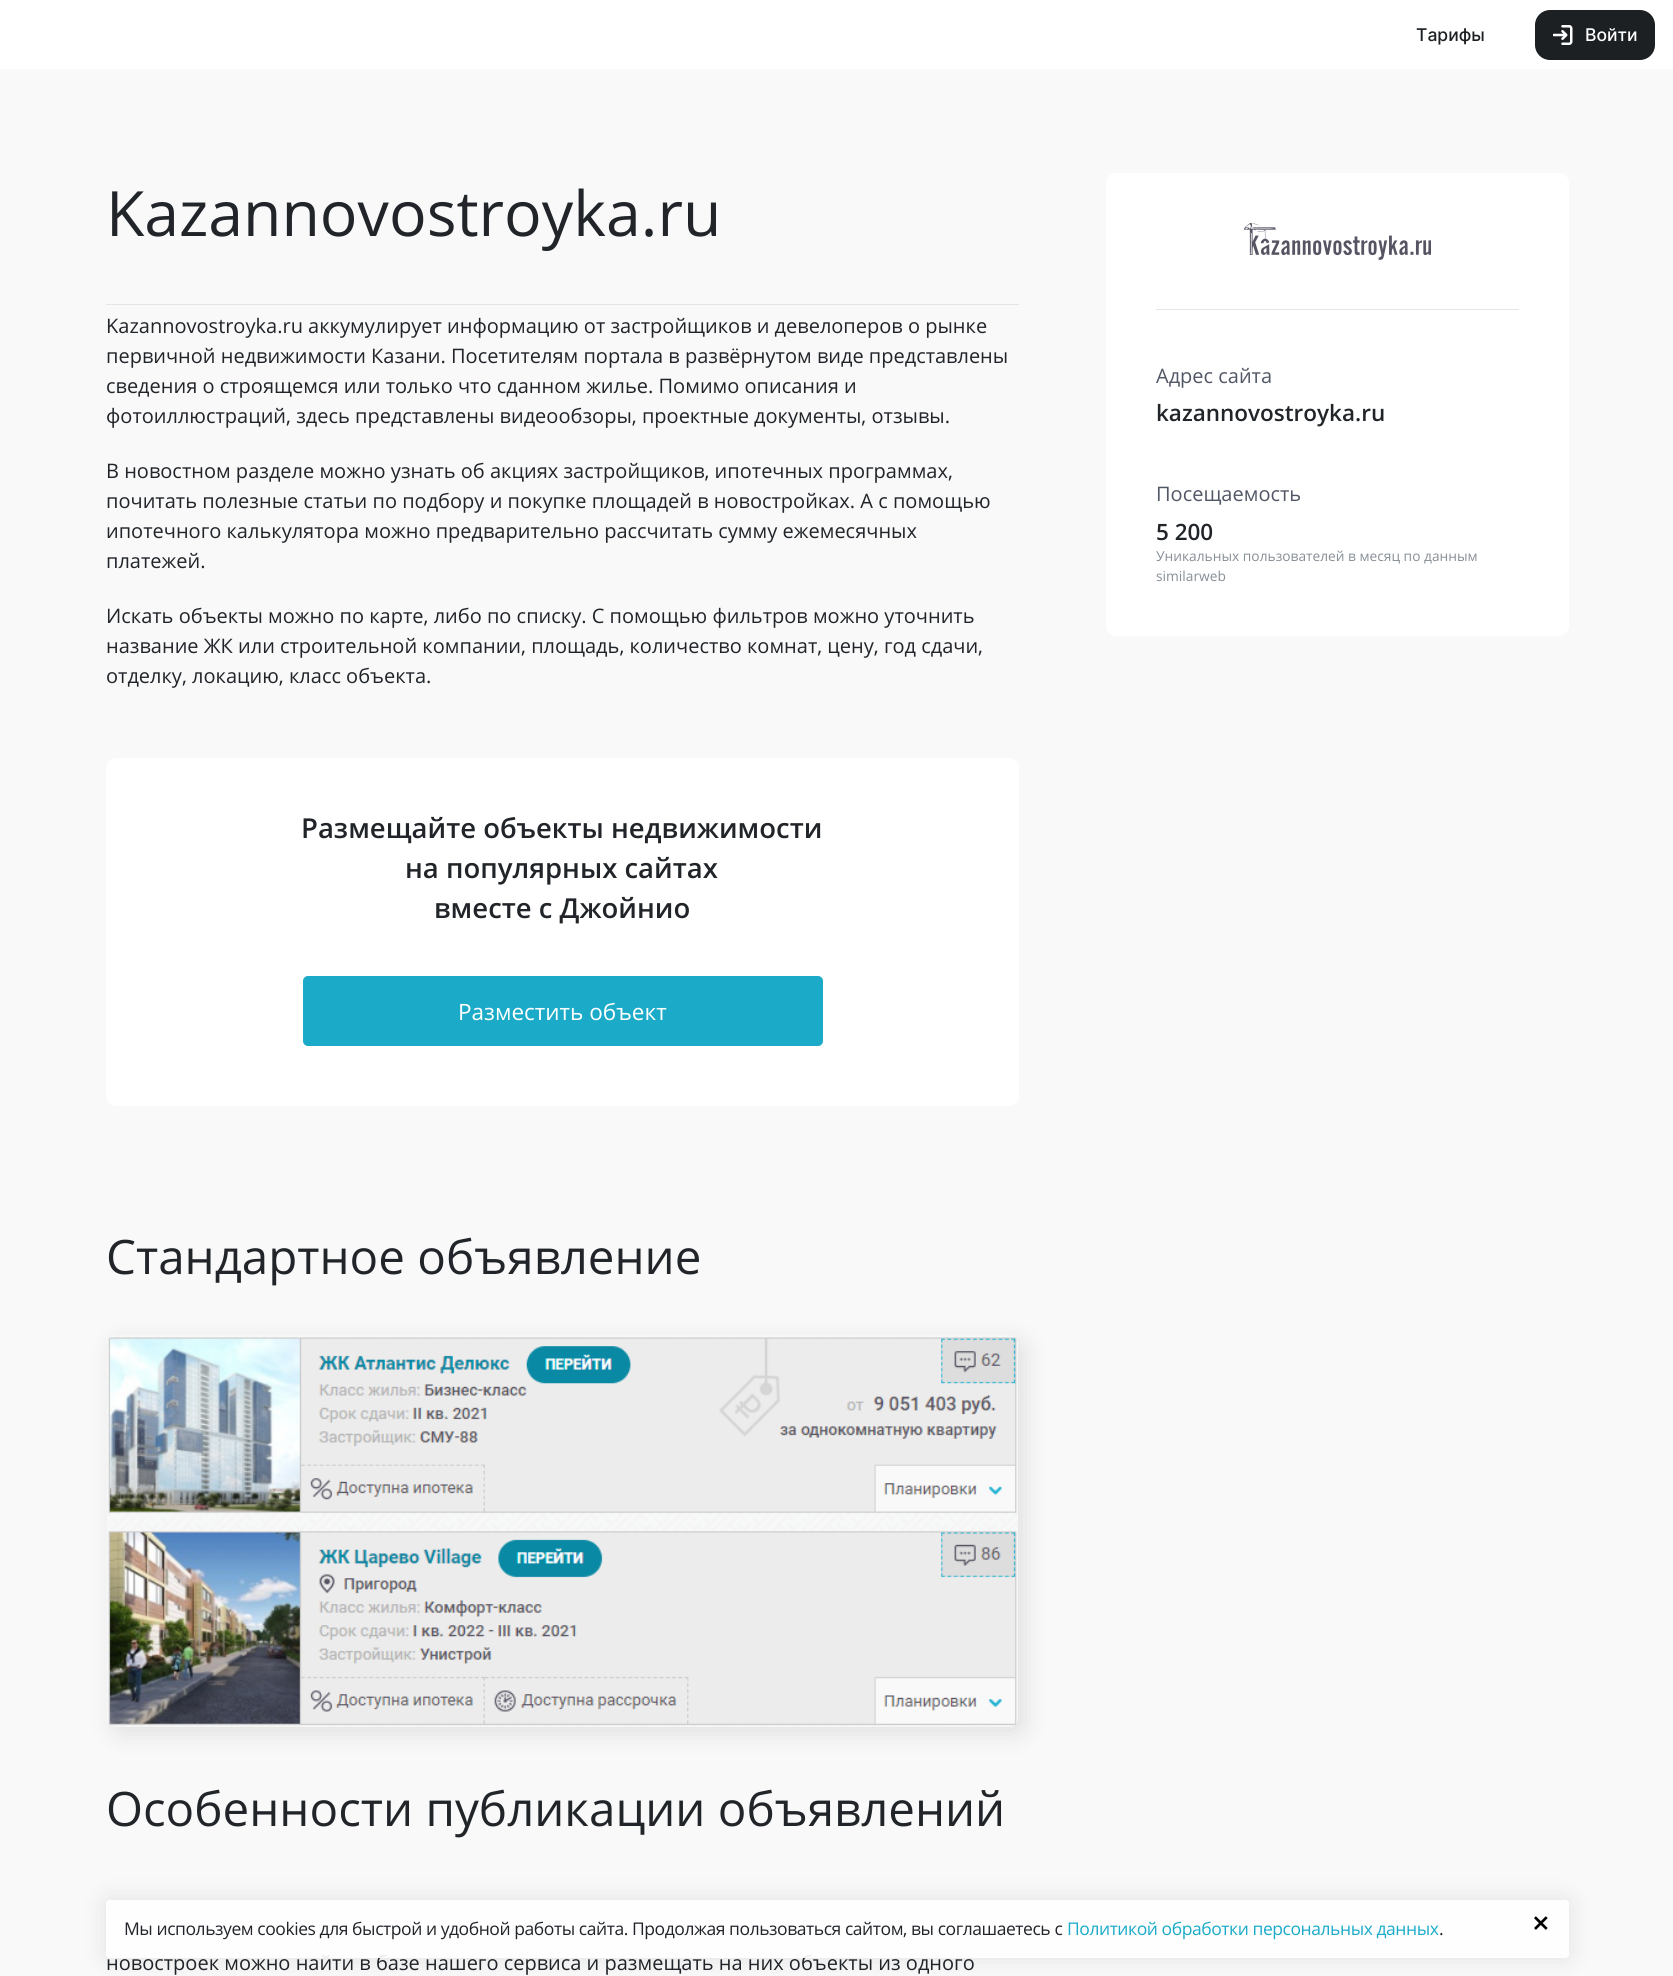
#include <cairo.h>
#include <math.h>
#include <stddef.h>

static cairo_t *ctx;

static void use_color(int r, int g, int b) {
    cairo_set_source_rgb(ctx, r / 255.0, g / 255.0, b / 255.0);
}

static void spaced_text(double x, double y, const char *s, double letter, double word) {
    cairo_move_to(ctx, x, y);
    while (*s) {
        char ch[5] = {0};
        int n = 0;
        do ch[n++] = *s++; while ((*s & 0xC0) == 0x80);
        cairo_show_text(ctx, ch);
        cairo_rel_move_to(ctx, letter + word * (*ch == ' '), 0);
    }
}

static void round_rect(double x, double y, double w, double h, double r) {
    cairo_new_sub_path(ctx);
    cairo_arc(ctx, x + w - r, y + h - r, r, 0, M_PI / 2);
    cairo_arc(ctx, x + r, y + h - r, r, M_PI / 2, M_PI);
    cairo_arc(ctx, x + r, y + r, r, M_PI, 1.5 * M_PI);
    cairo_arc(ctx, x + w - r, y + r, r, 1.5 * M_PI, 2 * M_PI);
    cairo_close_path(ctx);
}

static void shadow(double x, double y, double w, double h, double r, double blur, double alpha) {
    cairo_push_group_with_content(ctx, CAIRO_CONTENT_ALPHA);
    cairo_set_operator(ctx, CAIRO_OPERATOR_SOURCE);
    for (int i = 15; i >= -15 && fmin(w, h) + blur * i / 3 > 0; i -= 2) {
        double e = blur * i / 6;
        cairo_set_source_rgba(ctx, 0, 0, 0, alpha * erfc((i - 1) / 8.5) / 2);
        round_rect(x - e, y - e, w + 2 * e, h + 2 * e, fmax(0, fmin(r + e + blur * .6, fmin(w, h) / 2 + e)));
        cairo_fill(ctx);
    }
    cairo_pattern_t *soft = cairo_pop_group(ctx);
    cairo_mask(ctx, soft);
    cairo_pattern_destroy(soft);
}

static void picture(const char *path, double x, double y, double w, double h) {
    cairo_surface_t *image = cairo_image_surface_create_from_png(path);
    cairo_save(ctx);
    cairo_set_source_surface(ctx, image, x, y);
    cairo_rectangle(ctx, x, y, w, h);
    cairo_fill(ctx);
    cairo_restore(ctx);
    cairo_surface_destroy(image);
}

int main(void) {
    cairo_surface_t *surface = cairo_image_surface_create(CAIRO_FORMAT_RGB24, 1673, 1976);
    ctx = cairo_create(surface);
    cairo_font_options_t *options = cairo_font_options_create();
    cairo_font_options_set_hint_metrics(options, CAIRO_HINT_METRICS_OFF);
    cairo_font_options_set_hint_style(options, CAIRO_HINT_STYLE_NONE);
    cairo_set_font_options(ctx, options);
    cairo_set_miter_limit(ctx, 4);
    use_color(249, 249, 250);
    cairo_paint(ctx);
    use_color(255, 255, 255);
    cairo_rectangle(ctx, 0, 0, 1673, 69);
    cairo_fill(ctx);
    cairo_select_font_face(ctx, "Inter Medium", CAIRO_FONT_SLANT_NORMAL, CAIRO_FONT_WEIGHT_NORMAL);
    cairo_set_font_size(ctx, 17.5);
    use_color(28, 32, 35);
    cairo_move_to(ctx, 1416, 41);
    cairo_show_text(ctx, "Тарифы");
    round_rect(1535, 10, 120, 50, 15);
    cairo_fill(ctx);
    picture("img1.png", 1553, 25, 20, 20);
    use_color(255, 255, 255);
    cairo_move_to(ctx, 1585, 41);
    cairo_show_text(ctx, "Войти");
    cairo_select_font_face(ctx, "Open Sans", CAIRO_FONT_SLANT_NORMAL, CAIRO_FONT_WEIGHT_NORMAL);
    cairo_set_font_size(ctx, 62.5);
    use_color(33, 37, 41);
    cairo_move_to(ctx, 106, 236);
    cairo_show_text(ctx, "Kazannovostroyka.ru");
    use_color(229, 229, 229);
    cairo_rectangle(ctx, 106, 304, 913, 1);
    cairo_fill(ctx);
    use_color(255, 255, 255);
    cairo_new_path(ctx);
    cairo_move_to(ctx, 1116, 173);
    cairo_line_to(ctx, 1559, 173);
    cairo_curve_to(ctx, 1564.5, 173, 1569, 177.5, 1569, 183);
    cairo_line_to(ctx, 1569, 310);
    cairo_line_to(ctx, 1106, 310);
    cairo_line_to(ctx, 1106, 183);
    cairo_curve_to(ctx, 1106, 177.5, 1110.5, 173, 1116, 173);
    cairo_close_path(ctx);
    cairo_fill(ctx);
    picture("img2.png", 1244, 223, 187, 37);
    use_color(229, 229, 229);
    cairo_rectangle(ctx, 1156, 309, 363, 1);
    cairo_fill(ctx);
    cairo_set_font_size(ctx, 20);
    use_color(33, 37, 41);
    cairo_move_to(ctx, 106, 333);
    cairo_show_text(ctx, "Kazannovostroyka.ru аккумулирует информацию от застройщиков и девелоперов о рынке");
    cairo_move_to(ctx, 106, 363);
    cairo_show_text(ctx, "первичной недвижимости Казани. Посетителям портала в развёрнутом виде представлены");
    cairo_move_to(ctx, 106, 393);
    cairo_show_text(ctx, "сведения о строящемся или только что сданном жилье. Помимо описания и");
    cairo_move_to(ctx, 106, 423);
    cairo_show_text(ctx, "фотоиллюстраций, здесь представлены видеообзоры, проектные документы, отзывы.");
    cairo_move_to(ctx, 106, 478);
    cairo_show_text(ctx, "В новостном разделе можно узнать об акциях застройщиков, ипотечных программах,");
    cairo_move_to(ctx, 106, 508);
    cairo_show_text(ctx, "почитать полезные статьи по подбору и покупке площадей в новостройках. А с помощью");
    cairo_move_to(ctx, 106, 538);
    cairo_show_text(ctx, "ипотечного калькулятора можно предварительно рассчитать сумму ежемесячных");
    cairo_move_to(ctx, 106, 568);
    cairo_show_text(ctx, "платежей.");
    cairo_move_to(ctx, 106, 623);
    cairo_show_text(ctx, "Искать объекты можно по карте, либо по списку. С помощью фильтров можно уточнить");
    cairo_move_to(ctx, 106, 653);
    cairo_show_text(ctx, "название ЖК или строительной компании, площадь, количество комнат, цену, год сдачи,");
    cairo_move_to(ctx, 106, 683);
    cairo_show_text(ctx, "отделку, локацию, класс объекта.");
    use_color(255, 255, 255);
    round_rect(106, 758, 913, 348, 10);
    cairo_fill(ctx);
    cairo_select_font_face(ctx, "Open Sans SemiBold", CAIRO_FONT_SLANT_NORMAL, CAIRO_FONT_WEIGHT_NORMAL);
    cairo_set_font_size(ctx, 27.5);
    use_color(33, 37, 41);
    cairo_move_to(ctx, 301, 838);
    cairo_show_text(ctx, "Размещайте объекты недвижимости");
    cairo_move_to(ctx, 405, 878);
    cairo_show_text(ctx, "на популярных сайтах");
    cairo_move_to(ctx, 434, 918);
    cairo_show_text(ctx, "вместе с Джойнио");
    use_color(27, 171, 201);
    round_rect(303, 976, 520, 70, 5);
    cairo_fill(ctx);
    cairo_select_font_face(ctx, "Open Sans", CAIRO_FONT_SLANT_NORMAL, CAIRO_FONT_WEIGHT_NORMAL);
    cairo_set_font_size(ctx, 22.5);
    use_color(255, 255, 255);
    cairo_move_to(ctx, 458, 1020);
    cairo_show_text(ctx, "Разместить объект");
    cairo_new_path(ctx);
    cairo_move_to(ctx, 1106, 310);
    cairo_line_to(ctx, 1569, 310);
    cairo_line_to(ctx, 1569, 626);
    cairo_curve_to(ctx, 1569, 631.5, 1564.5, 636, 1559, 636);
    cairo_line_to(ctx, 1116, 636);
    cairo_curve_to(ctx, 1110.5, 636, 1106, 631.5, 1106, 626);
    cairo_close_path(ctx);
    cairo_fill(ctx);
    cairo_set_font_size(ctx, 20);
    use_color(81, 87, 101);
    cairo_move_to(ctx, 1156, 383);
    cairo_show_text(ctx, "Адрес сайта");
    cairo_select_font_face(ctx, "Open Sans SemiBold", CAIRO_FONT_SLANT_NORMAL, CAIRO_FONT_WEIGHT_NORMAL);
    cairo_set_font_size(ctx, 22.5);
    use_color(33, 37, 41);
    cairo_move_to(ctx, 1156, 421);
    cairo_show_text(ctx, "kazannovostroyka.ru");
    cairo_select_font_face(ctx, "Open Sans", CAIRO_FONT_SLANT_NORMAL, CAIRO_FONT_WEIGHT_NORMAL);
    cairo_set_font_size(ctx, 20);
    use_color(81, 87, 101);
    cairo_move_to(ctx, 1156, 501);
    cairo_show_text(ctx, "Посещаемость");
    cairo_select_font_face(ctx, "Open Sans SemiBold", CAIRO_FONT_SLANT_NORMAL, CAIRO_FONT_WEIGHT_NORMAL);
    cairo_set_font_size(ctx, 22.5);
    use_color(33, 37, 41);
    cairo_move_to(ctx, 1156, 540);
    cairo_show_text(ctx, "5 200");
    cairo_select_font_face(ctx, "Open Sans", CAIRO_FONT_SLANT_NORMAL, CAIRO_FONT_WEIGHT_NORMAL);
    cairo_set_font_size(ctx, 13.75);
    use_color(134, 142, 150);
    cairo_move_to(ctx, 1156, 561);
    cairo_show_text(ctx, "Уникальных пользователей в месяц по данным");
    cairo_move_to(ctx, 1156, 581);
    cairo_show_text(ctx, "similarweb");
    cairo_set_font_size(ctx, 47.5);
    use_color(33, 37, 41);
    cairo_move_to(ctx, 106, 1274);
    cairo_show_text(ctx, "Стандартное объявление");
    use_color(0, 0, 0);
    shadow(113, 1341, 912, 393, 10, 12.5, 0.1);
    picture("img3.png", 107, 1335, 911, 392);
    use_color(33, 37, 41);
    cairo_move_to(ctx, 106, 1826);
    cairo_show_text(ctx, "Особенности публикации объявлений");
    cairo_set_font_size(ctx, 20);
    cairo_move_to(ctx, 106, 1970);
    cairo_show_text(ctx, "новостроек можно найти в базе нашего сервиса и размещать на них объекты из одного");
    cairo_save(ctx);
    cairo_set_fill_rule(ctx, CAIRO_FILL_RULE_EVEN_ODD);
    cairo_new_path(ctx);
    cairo_move_to(ctx, 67, 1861);
    cairo_line_to(ctx, 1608, 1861);
    cairo_line_to(ctx, 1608, 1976);
    cairo_line_to(ctx, 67, 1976);
    cairo_close_path(ctx);
    cairo_move_to(ctx, 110, 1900);
    cairo_line_to(ctx, 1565, 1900);
    cairo_curve_to(ctx, 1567, 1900, 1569, 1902, 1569, 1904);
    cairo_line_to(ctx, 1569, 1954);
    cairo_curve_to(ctx, 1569, 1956, 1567, 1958, 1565, 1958);
    cairo_line_to(ctx, 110, 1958);
    cairo_curve_to(ctx, 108, 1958, 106, 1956, 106, 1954);
    cairo_line_to(ctx, 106, 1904);
    cairo_curve_to(ctx, 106, 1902, 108, 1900, 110, 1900);
    cairo_close_path(ctx);
    cairo_clip(ctx);
    use_color(0, 0, 0);
    shadow(106, 1900, 1463, 58, 4, 12.5, 0.1);
    cairo_restore(ctx);
    cairo_set_source_rgba(ctx, 1, 1, 1, 0.9);
    round_rect(106, 1900, 1463, 58, 4);
    cairo_fill(ctx);
    cairo_set_font_size(ctx, 17.5);
    use_color(33, 37, 41);
    spaced_text(124, 1935, "Мы используем cookies для быстрой и удобной работы сайта. Продолжая пользоваться сайтом, вы соглашаетесь с", -0.44, 0);
    use_color(27, 171, 201);
    spaced_text(1067, 1935, "Политикой обработки персональных данных", -0.44, 0);
    use_color(33, 37, 41);
    spaced_text(1439, 1935, ".", -0.44, 0);
    cairo_select_font_face(ctx, "Open Sans SemiBold", CAIRO_FONT_SLANT_NORMAL, CAIRO_FONT_WEIGHT_NORMAL);
    cairo_set_font_size(ctx, 31);
    use_color(0, 0, 0);
    spaced_text(1532, 1934, "×", -1, 0);
    cairo_surface_write_to_png(surface, "result.png");
    cairo_font_options_destroy(options);
    cairo_destroy(ctx);
    cairo_surface_destroy(surface);
    return 0;
}
